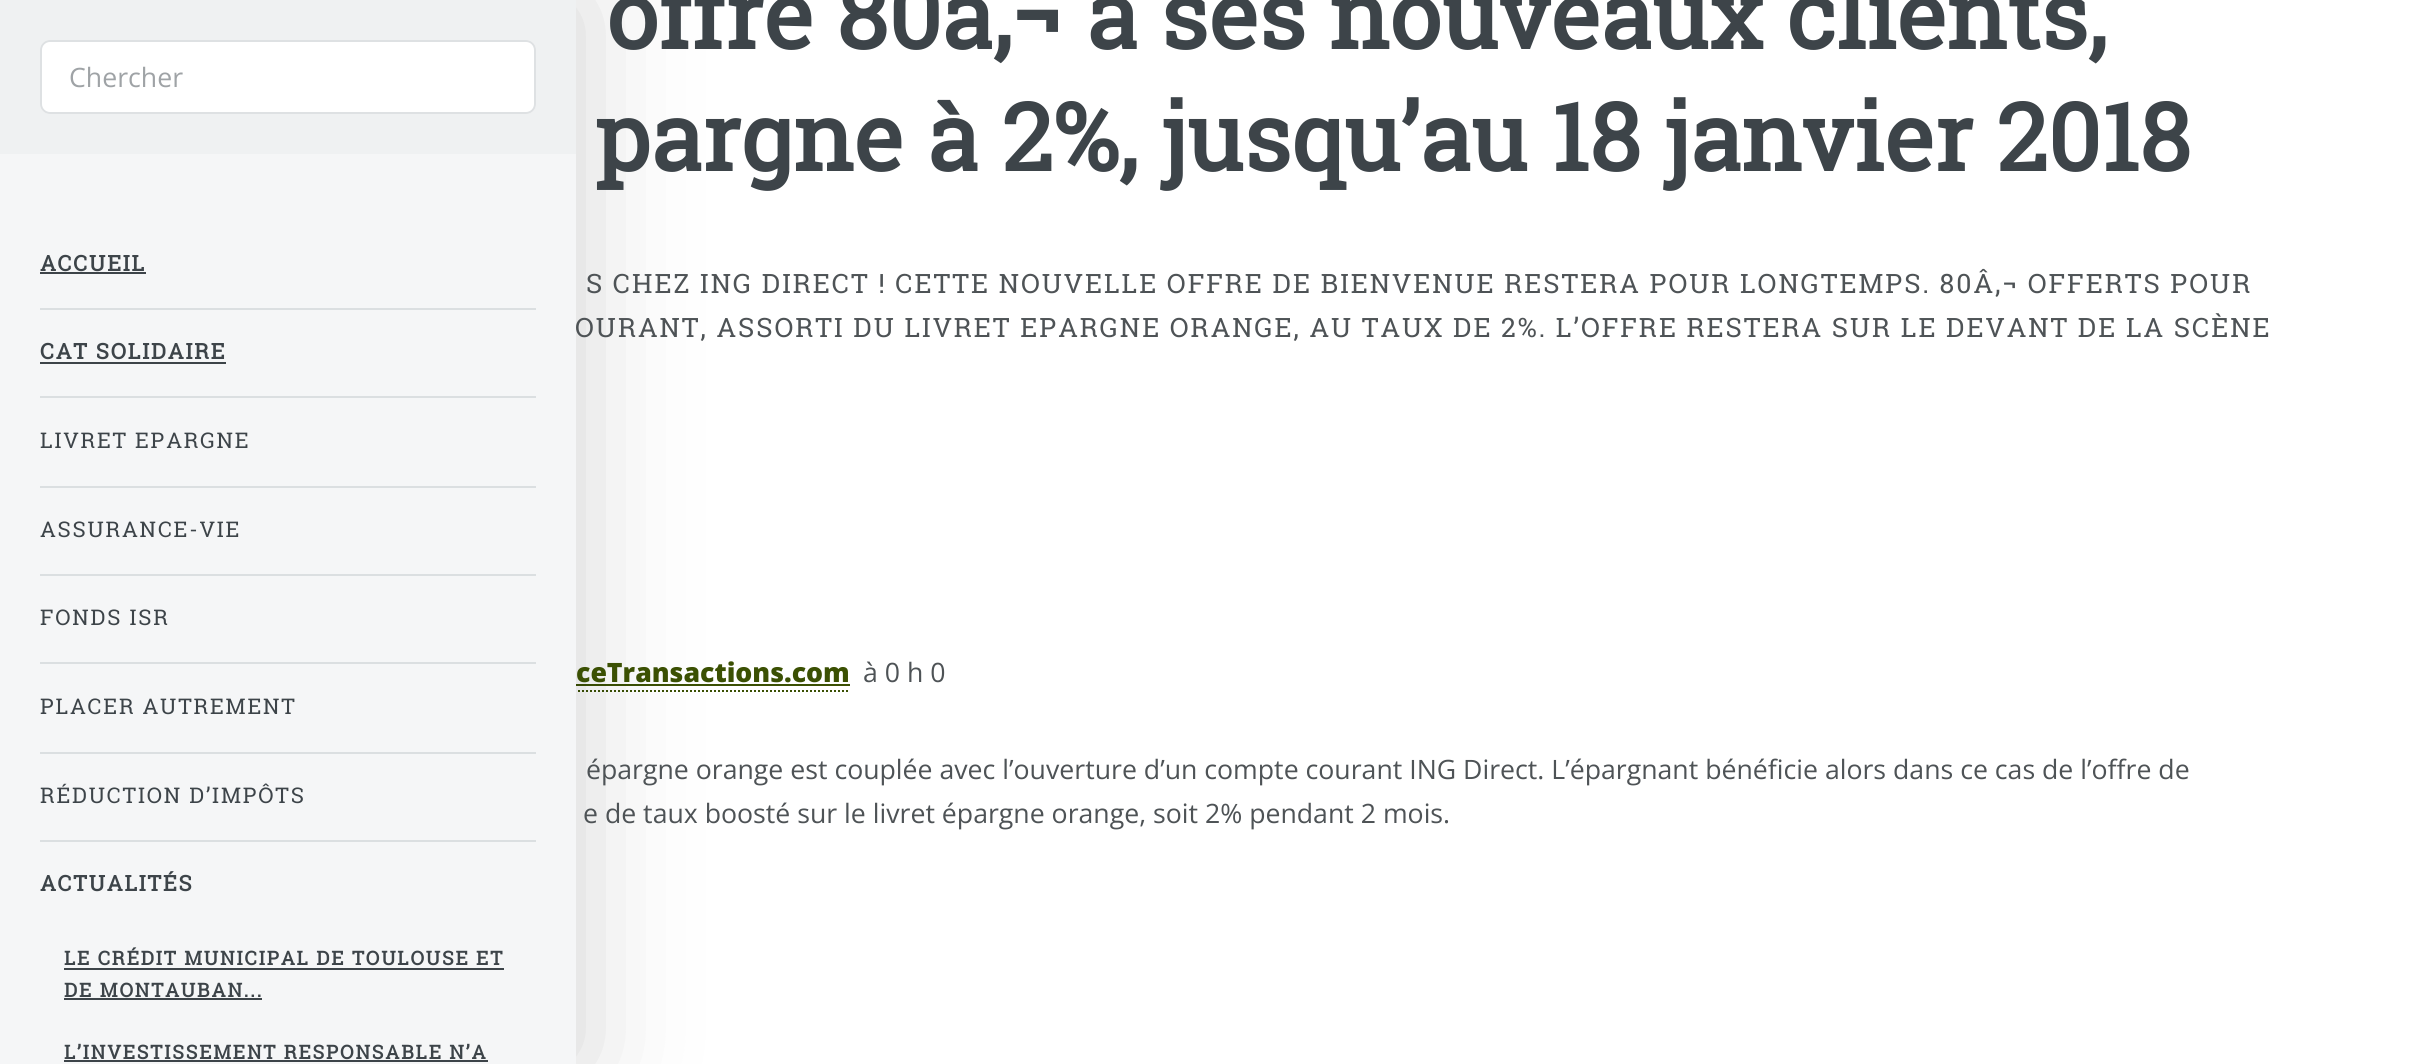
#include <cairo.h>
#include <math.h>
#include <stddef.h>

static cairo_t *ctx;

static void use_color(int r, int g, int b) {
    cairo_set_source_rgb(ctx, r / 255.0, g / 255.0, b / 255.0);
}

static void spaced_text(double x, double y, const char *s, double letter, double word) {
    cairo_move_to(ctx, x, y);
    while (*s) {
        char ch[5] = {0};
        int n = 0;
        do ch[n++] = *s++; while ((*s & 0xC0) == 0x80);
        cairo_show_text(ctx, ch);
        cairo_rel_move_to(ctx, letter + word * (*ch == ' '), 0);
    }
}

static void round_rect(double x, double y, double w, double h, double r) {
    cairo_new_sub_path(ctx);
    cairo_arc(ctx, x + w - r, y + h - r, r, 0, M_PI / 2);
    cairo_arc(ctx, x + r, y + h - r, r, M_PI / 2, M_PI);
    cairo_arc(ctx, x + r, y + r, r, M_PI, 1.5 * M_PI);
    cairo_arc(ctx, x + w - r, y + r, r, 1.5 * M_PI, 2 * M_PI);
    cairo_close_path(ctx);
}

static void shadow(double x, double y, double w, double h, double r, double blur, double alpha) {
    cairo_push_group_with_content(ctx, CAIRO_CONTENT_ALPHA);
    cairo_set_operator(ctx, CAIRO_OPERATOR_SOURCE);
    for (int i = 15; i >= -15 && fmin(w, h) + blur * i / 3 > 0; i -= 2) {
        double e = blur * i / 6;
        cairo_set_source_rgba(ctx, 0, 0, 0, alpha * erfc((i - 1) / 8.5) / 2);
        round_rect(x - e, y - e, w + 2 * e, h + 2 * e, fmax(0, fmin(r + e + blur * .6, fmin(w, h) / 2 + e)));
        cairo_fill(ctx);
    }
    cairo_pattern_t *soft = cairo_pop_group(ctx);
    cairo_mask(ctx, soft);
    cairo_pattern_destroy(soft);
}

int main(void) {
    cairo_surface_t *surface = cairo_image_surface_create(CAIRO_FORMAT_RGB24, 2436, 1064);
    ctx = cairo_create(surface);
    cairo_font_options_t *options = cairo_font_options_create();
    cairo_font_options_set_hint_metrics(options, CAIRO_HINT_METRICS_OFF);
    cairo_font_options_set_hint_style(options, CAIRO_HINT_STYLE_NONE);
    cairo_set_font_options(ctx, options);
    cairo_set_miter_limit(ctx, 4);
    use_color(255, 255, 255);
    cairo_paint(ctx);
    cairo_new_path(ctx);
    cairo_move_to(ctx, 514, 691);
    cairo_line_to(ctx, 850, 691);
    use_color(59, 80, 3);
    cairo_set_dash(ctx, (double[]){2, 2}, 2, 0);
    cairo_stroke(ctx);
    cairo_rectangle(ctx, 576, 684, 274, 2);
    cairo_fill(ctx);
    use_color(0, 0, 0);
    shadow(0, 0, 576, 1064, 0, 60, 0.18);
    use_color(245, 246, 247);
    cairo_rectangle(ctx, 0, 154, 576, 910);
    cairo_fill(ctx);
    use_color(239, 241, 242);
    cairo_rectangle(ctx, 0, 0, 576, 154);
    cairo_fill(ctx);
    use_color(255, 255, 255);
    round_rect(40, 40, 496, 74, 10);
    cairo_fill(ctx);
    round_rect(41, 41, 494, 72, 9);
    cairo_set_source_rgba(ctx, 0.824, 0.843, 0.851, 0.75);
    cairo_set_dash(ctx, NULL, 0, 0);
    cairo_stroke(ctx);
    cairo_select_font_face(ctx, "Open Sans", CAIRO_FONT_SLANT_NORMAL, CAIRO_FONT_WEIGHT_NORMAL);
    cairo_set_font_size(ctx, 26.67);
    use_color(159, 163, 166);
    cairo_move_to(ctx, 69, 87);
    cairo_show_text(ctx, "Chercher");
    cairo_select_font_face(ctx, "Roboto Slab", CAIRO_FONT_SLANT_NORMAL, CAIRO_FONT_WEIGHT_BOLD);
    cairo_set_font_size(ctx, 21.6);
    use_color(61, 68, 73);
    spaced_text(40, 271, "ACCUEIL", 1.8, 0);
    cairo_rectangle(ctx, 40, 272, 106, 2);
    cairo_fill(ctx);
    use_color(219, 223, 225);
    cairo_rectangle(ctx, 40, 308, 496, 2);
    cairo_fill(ctx);
    use_color(61, 68, 73);
    spaced_text(40, 359, "CAT SOLIDAIRE", 1.8, 0);
    cairo_rectangle(ctx, 40, 362, 186, 2);
    cairo_fill(ctx);
    use_color(219, 223, 225);
    cairo_rectangle(ctx, 40, 396, 496, 2);
    cairo_fill(ctx);
    cairo_select_font_face(ctx, "Roboto Slab", CAIRO_FONT_SLANT_NORMAL, CAIRO_FONT_WEIGHT_NORMAL);
    use_color(61, 68, 73);
    spaced_text(40, 448, "LIVRET EPARGNE", 1.8, 0);
    use_color(219, 223, 225);
    cairo_rectangle(ctx, 40, 486, 496, 2);
    cairo_fill(ctx);
    use_color(61, 68, 73);
    spaced_text(40, 537, "ASSURANCE-VIE", 1.8, 0);
    use_color(219, 223, 225);
    cairo_rectangle(ctx, 40, 574, 496, 2);
    cairo_fill(ctx);
    use_color(61, 68, 73);
    spaced_text(40, 625, "FONDS ISR", 1.8, 0);
    use_color(219, 223, 225);
    cairo_rectangle(ctx, 40, 662, 496, 2);
    cairo_fill(ctx);
    use_color(61, 68, 73);
    spaced_text(40, 714, "PLACER AUTREMENT", 1.8, 0);
    use_color(219, 223, 225);
    cairo_rectangle(ctx, 40, 752, 496, 2);
    cairo_fill(ctx);
    use_color(61, 68, 73);
    spaced_text(40, 803, "RÉDUCTION D’IMPÔTS", 1.8, 0);
    use_color(219, 223, 225);
    cairo_rectangle(ctx, 40, 840, 496, 2);
    cairo_fill(ctx);
    cairo_select_font_face(ctx, "Roboto Slab", CAIRO_FONT_SLANT_NORMAL, CAIRO_FONT_WEIGHT_BOLD);
    use_color(61, 68, 73);
    spaced_text(40, 891, "ACTUALITÉS", 1.8, 0);
    cairo_set_font_size(ctx, 19.2);
    spaced_text(64, 965, "LE CRÉDIT MUNICIPAL DE TOULOUSE ET", 1.8, 0);
    cairo_rectangle(ctx, 64, 968, 440, 2);
    cairo_fill(ctx);
    spaced_text(64, 997, "DE MONTAUBAN...", 1.8, 0);
    cairo_rectangle(ctx, 64, 998, 198, 2);
    cairo_fill(ctx);
    spaced_text(64, 1059, "L’INVESTISSEMENT RESPONSABLE N’A", 1.8, 0);
    cairo_rectangle(ctx, 64, 1060, 424, 2);
    cairo_fill(ctx);
    cairo_set_font_size(ctx, 93.3);
    cairo_move_to(ctx, 606, 49);
    cairo_show_text(ctx, "offre 80â‚¬ à ses nouveaux clients,");
    cairo_move_to(ctx, 594, 171);
    cairo_show_text(ctx, "pargne à 2%, jusqu’au 18 janvier 2018");
    cairo_select_font_face(ctx, "Roboto Slab", CAIRO_FONT_SLANT_NORMAL, CAIRO_FONT_WEIGHT_NORMAL);
    cairo_set_font_size(ctx, 26.67);
    use_color(78, 83, 86);
    spaced_text(586, 293, "S CHEZ ING DIRECT ! CETTE NOUVELLE OFFRE DE BIENVENUE RESTERA POUR LONGTEMPS. 80Â‚¬ OFFERTS POUR", 2, 0);
    spaced_text(575, 337, "OURANT, ASSORTI DU LIVRET EPARGNE ORANGE, AU TAUX DE 2%. L’OFFRE RESTERA SUR LE DEVANT DE LA SCÈNE", 2, 0);
    cairo_select_font_face(ctx, "Open Sans ExtraBold", CAIRO_FONT_SLANT_NORMAL, CAIRO_FONT_WEIGHT_NORMAL);
    use_color(59, 80, 3);
    cairo_move_to(ctx, 576, 682);
    cairo_show_text(ctx, "ceTransactions.com");
    cairo_select_font_face(ctx, "Open Sans", CAIRO_FONT_SLANT_NORMAL, CAIRO_FONT_WEIGHT_NORMAL);
    use_color(78, 83, 86);
    cairo_move_to(ctx, 863, 682);
    cairo_show_text(ctx, "à 0 h 0");
    cairo_move_to(ctx, 586, 779);
    cairo_show_text(ctx, "épargne orange est couplée avec l’ouverture d’un compte courant ING Direct. L’épargnant bénéficie alors dans ce cas de l’offre de");
    cairo_move_to(ctx, 583, 823);
    cairo_show_text(ctx, "e de taux boosté sur le livret épargne orange, soit 2% pendant 2 mois.");
    cairo_surface_write_to_png(surface, "result.png");
    cairo_font_options_destroy(options);
    cairo_destroy(ctx);
    cairo_surface_destroy(surface);
    return 0;
}
